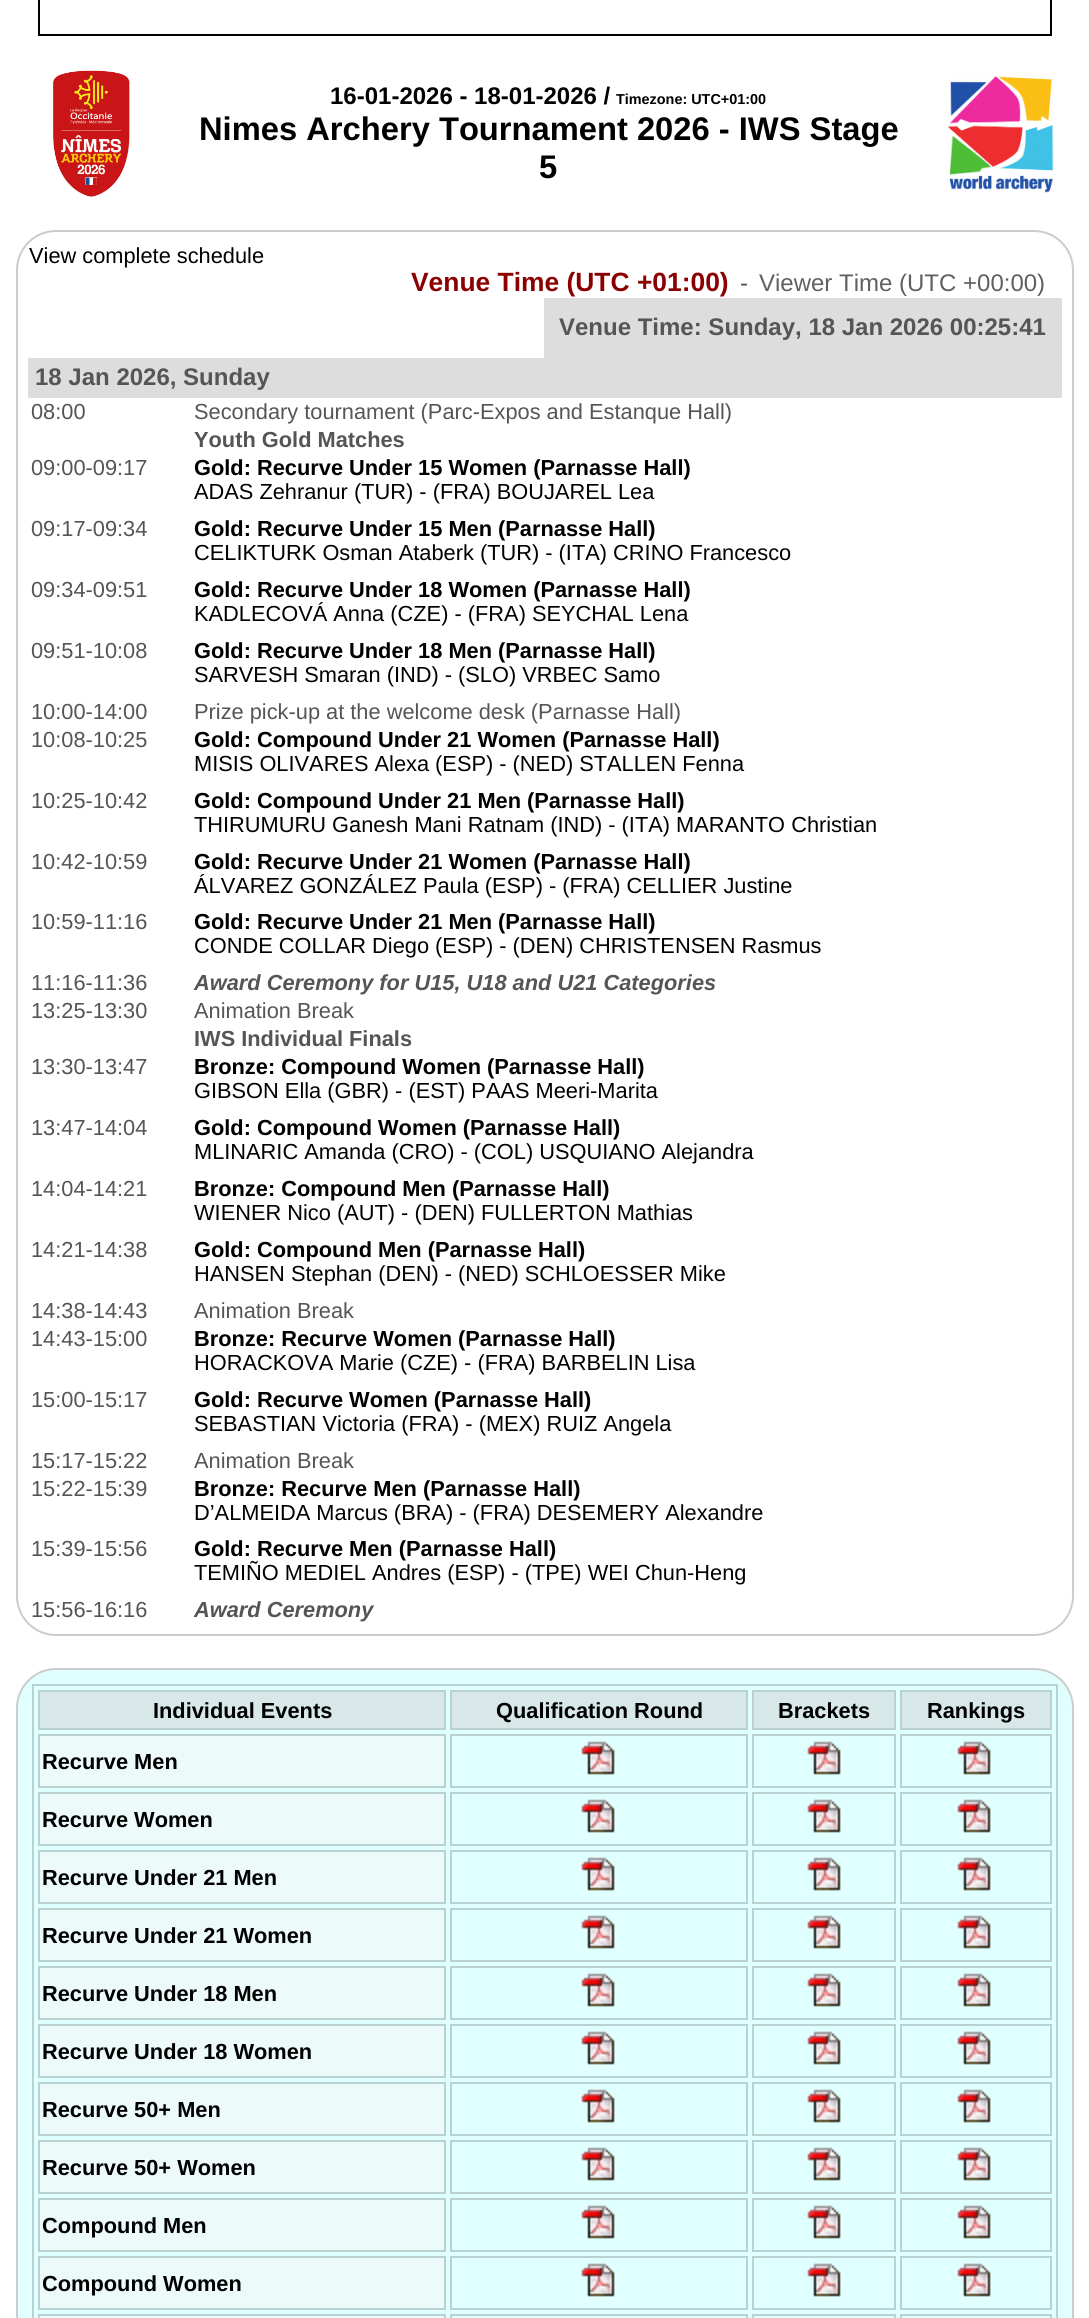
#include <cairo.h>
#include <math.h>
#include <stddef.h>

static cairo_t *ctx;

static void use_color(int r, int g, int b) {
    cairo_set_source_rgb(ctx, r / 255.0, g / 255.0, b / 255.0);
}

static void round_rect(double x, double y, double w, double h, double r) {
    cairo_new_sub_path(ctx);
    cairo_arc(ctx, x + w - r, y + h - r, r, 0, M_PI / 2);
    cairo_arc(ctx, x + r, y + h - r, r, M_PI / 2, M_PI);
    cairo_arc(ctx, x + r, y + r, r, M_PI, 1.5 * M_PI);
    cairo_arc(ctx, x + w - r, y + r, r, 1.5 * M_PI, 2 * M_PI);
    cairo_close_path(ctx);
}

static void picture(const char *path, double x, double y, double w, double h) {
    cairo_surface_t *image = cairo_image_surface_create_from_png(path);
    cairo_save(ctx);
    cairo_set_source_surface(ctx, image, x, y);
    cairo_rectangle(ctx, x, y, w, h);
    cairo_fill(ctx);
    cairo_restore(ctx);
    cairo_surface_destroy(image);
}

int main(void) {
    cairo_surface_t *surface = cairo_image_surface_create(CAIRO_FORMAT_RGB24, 1089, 2318);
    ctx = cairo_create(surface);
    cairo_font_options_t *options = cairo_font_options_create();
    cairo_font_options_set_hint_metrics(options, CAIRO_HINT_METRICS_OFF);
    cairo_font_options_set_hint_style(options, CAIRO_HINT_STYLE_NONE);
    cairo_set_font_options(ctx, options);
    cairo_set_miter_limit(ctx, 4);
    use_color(255, 255, 255);
    cairo_paint(ctx);
    cairo_rectangle(ctx, 39, -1, 1012, 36);
    use_color(0, 0, 0);
    cairo_stroke(ctx);
    picture("img1.png", 53, 70, 77, 127);
    cairo_select_font_face(ctx, "Liberation Sans", CAIRO_FONT_SLANT_NORMAL, CAIRO_FONT_WEIGHT_BOLD);
    cairo_set_font_size(ctx, 24);
    cairo_move_to(ctx, 330, 104);
    cairo_show_text(ctx, "16-01-2026 - 18-01-2026 /");
    cairo_set_font_size(ctx, 14.4);
    cairo_move_to(ctx, 616, 104);
    cairo_show_text(ctx, "Timezone: UTC+01:00");
    cairo_set_font_size(ctx, 32.7);
    cairo_move_to(ctx, 199, 140);
    cairo_show_text(ctx, "Nimes Archery Tournament 2026 - IWS Stage");
    cairo_move_to(ctx, 539, 178);
    cairo_show_text(ctx, "5");
    picture("img2.png", 947, 76, 107, 117);
    round_rect(17, 231, 1056, 1404, 39);
    use_color(204, 204, 204);
    cairo_stroke(ctx);
    cairo_select_font_face(ctx, "Liberation Sans", CAIRO_FONT_SLANT_NORMAL, CAIRO_FONT_WEIGHT_NORMAL);
    cairo_set_font_size(ctx, 21.8);
    use_color(0, 0, 0);
    cairo_move_to(ctx, 29, 263);
    cairo_show_text(ctx, "View complete schedule");
    cairo_select_font_face(ctx, "Liberation Sans", CAIRO_FONT_SLANT_NORMAL, CAIRO_FONT_WEIGHT_BOLD);
    cairo_set_font_size(ctx, 26.4);
    use_color(139, 0, 0);
    cairo_move_to(ctx, 411, 291);
    cairo_show_text(ctx, "Venue Time (UTC +01:00)");
    cairo_select_font_face(ctx, "Liberation Sans", CAIRO_FONT_SLANT_NORMAL, CAIRO_FONT_WEIGHT_NORMAL);
    cairo_set_font_size(ctx, 24);
    use_color(85, 85, 85);
    cairo_move_to(ctx, 740, 291);
    cairo_show_text(ctx, "-");
    use_color(96, 96, 96);
    cairo_move_to(ctx, 759, 291);
    cairo_show_text(ctx, "Viewer Time (UTC +00:00)");
    use_color(221, 221, 221);
    cairo_rectangle(ctx, 544, 298, 518, 60);
    cairo_fill(ctx);
    cairo_select_font_face(ctx, "Liberation Sans", CAIRO_FONT_SLANT_NORMAL, CAIRO_FONT_WEIGHT_BOLD);
    use_color(85, 85, 85);
    cairo_move_to(ctx, 559, 335);
    cairo_show_text(ctx, "Venue Time: Sunday, 18 Jan 2026 00:25:41");
    use_color(221, 221, 221);
    cairo_rectangle(ctx, 28, 358, 1034, 40);
    cairo_fill(ctx);
    use_color(85, 85, 85);
    cairo_move_to(ctx, 35, 385);
    cairo_show_text(ctx, "18 Jan 2026, Sunday");
    cairo_select_font_face(ctx, "Liberation Sans", CAIRO_FONT_SLANT_NORMAL, CAIRO_FONT_WEIGHT_NORMAL);
    cairo_set_font_size(ctx, 21.8);
    cairo_move_to(ctx, 31, 419);
    cairo_show_text(ctx, "08:00");
    cairo_move_to(ctx, 194, 419);
    cairo_show_text(ctx, "Secondary tournament (Parc-Expos and Estanque Hall)");
    cairo_select_font_face(ctx, "Liberation Sans", CAIRO_FONT_SLANT_NORMAL, CAIRO_FONT_WEIGHT_BOLD);
    cairo_move_to(ctx, 194, 447);
    cairo_show_text(ctx, "Youth Gold Matches");
    cairo_select_font_face(ctx, "Liberation Sans", CAIRO_FONT_SLANT_NORMAL, CAIRO_FONT_WEIGHT_NORMAL);
    cairo_move_to(ctx, 31, 475);
    cairo_show_text(ctx, "09:00-09:17");
    cairo_select_font_face(ctx, "Liberation Sans", CAIRO_FONT_SLANT_NORMAL, CAIRO_FONT_WEIGHT_BOLD);
    use_color(0, 0, 0);
    cairo_move_to(ctx, 194, 475);
    cairo_show_text(ctx, "Gold: Recurve Under 15 Women (Parnasse Hall)");
    cairo_select_font_face(ctx, "Liberation Sans", CAIRO_FONT_SLANT_NORMAL, CAIRO_FONT_WEIGHT_NORMAL);
    cairo_move_to(ctx, 194, 499);
    cairo_show_text(ctx, "ADAS Zehranur (TUR) - (FRA) BOUJAREL Lea");
    use_color(85, 85, 85);
    cairo_move_to(ctx, 31, 536);
    cairo_show_text(ctx, "09:17-09:34");
    cairo_select_font_face(ctx, "Liberation Sans", CAIRO_FONT_SLANT_NORMAL, CAIRO_FONT_WEIGHT_BOLD);
    use_color(0, 0, 0);
    cairo_move_to(ctx, 194, 536);
    cairo_show_text(ctx, "Gold: Recurve Under 15 Men (Parnasse Hall)");
    cairo_select_font_face(ctx, "Liberation Sans", CAIRO_FONT_SLANT_NORMAL, CAIRO_FONT_WEIGHT_NORMAL);
    cairo_move_to(ctx, 194, 560);
    cairo_show_text(ctx, "CELIKTURK Osman Ataberk (TUR) - (ITA) CRINO Francesco");
    use_color(85, 85, 85);
    cairo_move_to(ctx, 31, 597);
    cairo_show_text(ctx, "09:34-09:51");
    cairo_select_font_face(ctx, "Liberation Sans", CAIRO_FONT_SLANT_NORMAL, CAIRO_FONT_WEIGHT_BOLD);
    use_color(0, 0, 0);
    cairo_move_to(ctx, 194, 597);
    cairo_show_text(ctx, "Gold: Recurve Under 18 Women (Parnasse Hall)");
    cairo_select_font_face(ctx, "Liberation Sans", CAIRO_FONT_SLANT_NORMAL, CAIRO_FONT_WEIGHT_NORMAL);
    cairo_move_to(ctx, 194, 621);
    cairo_show_text(ctx, "KADLECOVÁ Anna (CZE) - (FRA) SEYCHAL Lena");
    use_color(85, 85, 85);
    cairo_move_to(ctx, 31, 658);
    cairo_show_text(ctx, "09:51-10:08");
    cairo_select_font_face(ctx, "Liberation Sans", CAIRO_FONT_SLANT_NORMAL, CAIRO_FONT_WEIGHT_BOLD);
    use_color(0, 0, 0);
    cairo_move_to(ctx, 194, 658);
    cairo_show_text(ctx, "Gold: Recurve Under 18 Men (Parnasse Hall)");
    cairo_select_font_face(ctx, "Liberation Sans", CAIRO_FONT_SLANT_NORMAL, CAIRO_FONT_WEIGHT_NORMAL);
    cairo_move_to(ctx, 194, 682);
    cairo_show_text(ctx, "SARVESH Smaran (IND) - (SLO) VRBEC Samo");
    use_color(85, 85, 85);
    cairo_move_to(ctx, 31, 719);
    cairo_show_text(ctx, "10:00-14:00");
    cairo_move_to(ctx, 194, 719);
    cairo_show_text(ctx, "Prize pick-up at the welcome desk (Parnasse Hall)");
    cairo_move_to(ctx, 31, 747);
    cairo_show_text(ctx, "10:08-10:25");
    cairo_select_font_face(ctx, "Liberation Sans", CAIRO_FONT_SLANT_NORMAL, CAIRO_FONT_WEIGHT_BOLD);
    use_color(0, 0, 0);
    cairo_move_to(ctx, 194, 747);
    cairo_show_text(ctx, "Gold: Compound Under 21 Women (Parnasse Hall)");
    cairo_select_font_face(ctx, "Liberation Sans", CAIRO_FONT_SLANT_NORMAL, CAIRO_FONT_WEIGHT_NORMAL);
    cairo_move_to(ctx, 194, 771);
    cairo_show_text(ctx, "MISIS OLIVARES Alexa (ESP) - (NED) STALLEN Fenna");
    use_color(85, 85, 85);
    cairo_move_to(ctx, 31, 808);
    cairo_show_text(ctx, "10:25-10:42");
    cairo_select_font_face(ctx, "Liberation Sans", CAIRO_FONT_SLANT_NORMAL, CAIRO_FONT_WEIGHT_BOLD);
    use_color(0, 0, 0);
    cairo_move_to(ctx, 194, 808);
    cairo_show_text(ctx, "Gold: Compound Under 21 Men (Parnasse Hall)");
    cairo_select_font_face(ctx, "Liberation Sans", CAIRO_FONT_SLANT_NORMAL, CAIRO_FONT_WEIGHT_NORMAL);
    cairo_move_to(ctx, 194, 832);
    cairo_show_text(ctx, "THIRUMURU Ganesh Mani Ratnam (IND) - (ITA) MARANTO Christian");
    use_color(85, 85, 85);
    cairo_move_to(ctx, 31, 869);
    cairo_show_text(ctx, "10:42-10:59");
    cairo_select_font_face(ctx, "Liberation Sans", CAIRO_FONT_SLANT_NORMAL, CAIRO_FONT_WEIGHT_BOLD);
    use_color(0, 0, 0);
    cairo_move_to(ctx, 194, 869);
    cairo_show_text(ctx, "Gold: Recurve Under 21 Women (Parnasse Hall)");
    cairo_select_font_face(ctx, "Liberation Sans", CAIRO_FONT_SLANT_NORMAL, CAIRO_FONT_WEIGHT_NORMAL);
    cairo_move_to(ctx, 194, 893);
    cairo_show_text(ctx, "ÁLVAREZ GONZÁLEZ Paula (ESP) - (FRA) CELLIER Justine");
    use_color(85, 85, 85);
    cairo_move_to(ctx, 31, 929);
    cairo_show_text(ctx, "10:59-11:16");
    cairo_select_font_face(ctx, "Liberation Sans", CAIRO_FONT_SLANT_NORMAL, CAIRO_FONT_WEIGHT_BOLD);
    use_color(0, 0, 0);
    cairo_move_to(ctx, 194, 929);
    cairo_show_text(ctx, "Gold: Recurve Under 21 Men (Parnasse Hall)");
    cairo_select_font_face(ctx, "Liberation Sans", CAIRO_FONT_SLANT_NORMAL, CAIRO_FONT_WEIGHT_NORMAL);
    cairo_move_to(ctx, 194, 953);
    cairo_show_text(ctx, "CONDE COLLAR Diego (ESP) - (DEN) CHRISTENSEN Rasmus");
    use_color(85, 85, 85);
    cairo_move_to(ctx, 31, 990);
    cairo_show_text(ctx, "11:16-11:36");
    cairo_select_font_face(ctx, "Liberation Sans", CAIRO_FONT_SLANT_ITALIC, CAIRO_FONT_WEIGHT_BOLD);
    cairo_move_to(ctx, 194, 990);
    cairo_show_text(ctx, "Award Ceremony for U15, U18 and U21 Categories");
    cairo_select_font_face(ctx, "Liberation Sans", CAIRO_FONT_SLANT_NORMAL, CAIRO_FONT_WEIGHT_NORMAL);
    cairo_move_to(ctx, 31, 1018);
    cairo_show_text(ctx, "13:25-13:30");
    cairo_move_to(ctx, 194, 1018);
    cairo_show_text(ctx, "Animation Break");
    cairo_select_font_face(ctx, "Liberation Sans", CAIRO_FONT_SLANT_NORMAL, CAIRO_FONT_WEIGHT_BOLD);
    cairo_move_to(ctx, 194, 1046);
    cairo_show_text(ctx, "IWS Individual Finals");
    cairo_select_font_face(ctx, "Liberation Sans", CAIRO_FONT_SLANT_NORMAL, CAIRO_FONT_WEIGHT_NORMAL);
    cairo_move_to(ctx, 31, 1074);
    cairo_show_text(ctx, "13:30-13:47");
    cairo_select_font_face(ctx, "Liberation Sans", CAIRO_FONT_SLANT_NORMAL, CAIRO_FONT_WEIGHT_BOLD);
    use_color(0, 0, 0);
    cairo_move_to(ctx, 194, 1074);
    cairo_show_text(ctx, "Bronze: Compound Women (Parnasse Hall)");
    cairo_select_font_face(ctx, "Liberation Sans", CAIRO_FONT_SLANT_NORMAL, CAIRO_FONT_WEIGHT_NORMAL);
    cairo_move_to(ctx, 194, 1098);
    cairo_show_text(ctx, "GIBSON Ella (GBR) - (EST) PAAS Meeri-Marita");
    use_color(85, 85, 85);
    cairo_move_to(ctx, 31, 1135);
    cairo_show_text(ctx, "13:47-14:04");
    cairo_select_font_face(ctx, "Liberation Sans", CAIRO_FONT_SLANT_NORMAL, CAIRO_FONT_WEIGHT_BOLD);
    use_color(0, 0, 0);
    cairo_move_to(ctx, 194, 1135);
    cairo_show_text(ctx, "Gold: Compound Women (Parnasse Hall)");
    cairo_select_font_face(ctx, "Liberation Sans", CAIRO_FONT_SLANT_NORMAL, CAIRO_FONT_WEIGHT_NORMAL);
    cairo_move_to(ctx, 194, 1159);
    cairo_show_text(ctx, "MLINARIC Amanda (CRO) - (COL) USQUIANO Alejandra");
    use_color(85, 85, 85);
    cairo_move_to(ctx, 31, 1196);
    cairo_show_text(ctx, "14:04-14:21");
    cairo_select_font_face(ctx, "Liberation Sans", CAIRO_FONT_SLANT_NORMAL, CAIRO_FONT_WEIGHT_BOLD);
    use_color(0, 0, 0);
    cairo_move_to(ctx, 194, 1196);
    cairo_show_text(ctx, "Bronze: Compound Men (Parnasse Hall)");
    cairo_select_font_face(ctx, "Liberation Sans", CAIRO_FONT_SLANT_NORMAL, CAIRO_FONT_WEIGHT_NORMAL);
    cairo_move_to(ctx, 194, 1220);
    cairo_show_text(ctx, "WIENER Nico (AUT) - (DEN) FULLERTON Mathias");
    use_color(85, 85, 85);
    cairo_move_to(ctx, 31, 1257);
    cairo_show_text(ctx, "14:21-14:38");
    cairo_select_font_face(ctx, "Liberation Sans", CAIRO_FONT_SLANT_NORMAL, CAIRO_FONT_WEIGHT_BOLD);
    use_color(0, 0, 0);
    cairo_move_to(ctx, 194, 1257);
    cairo_show_text(ctx, "Gold: Compound Men (Parnasse Hall)");
    cairo_select_font_face(ctx, "Liberation Sans", CAIRO_FONT_SLANT_NORMAL, CAIRO_FONT_WEIGHT_NORMAL);
    cairo_move_to(ctx, 194, 1281);
    cairo_show_text(ctx, "HANSEN Stephan (DEN) - (NED) SCHLOESSER Mike");
    use_color(85, 85, 85);
    cairo_move_to(ctx, 31, 1318);
    cairo_show_text(ctx, "14:38-14:43");
    cairo_move_to(ctx, 194, 1318);
    cairo_show_text(ctx, "Animation Break");
    cairo_move_to(ctx, 31, 1346);
    cairo_show_text(ctx, "14:43-15:00");
    cairo_select_font_face(ctx, "Liberation Sans", CAIRO_FONT_SLANT_NORMAL, CAIRO_FONT_WEIGHT_BOLD);
    use_color(0, 0, 0);
    cairo_move_to(ctx, 194, 1346);
    cairo_show_text(ctx, "Bronze: Recurve Women (Parnasse Hall)");
    cairo_select_font_face(ctx, "Liberation Sans", CAIRO_FONT_SLANT_NORMAL, CAIRO_FONT_WEIGHT_NORMAL);
    cairo_move_to(ctx, 194, 1370);
    cairo_show_text(ctx, "HORACKOVA Marie (CZE) - (FRA) BARBELIN Lisa");
    use_color(85, 85, 85);
    cairo_move_to(ctx, 31, 1407);
    cairo_show_text(ctx, "15:00-15:17");
    cairo_select_font_face(ctx, "Liberation Sans", CAIRO_FONT_SLANT_NORMAL, CAIRO_FONT_WEIGHT_BOLD);
    use_color(0, 0, 0);
    cairo_move_to(ctx, 194, 1407);
    cairo_show_text(ctx, "Gold: Recurve Women (Parnasse Hall)");
    cairo_select_font_face(ctx, "Liberation Sans", CAIRO_FONT_SLANT_NORMAL, CAIRO_FONT_WEIGHT_NORMAL);
    cairo_move_to(ctx, 194, 1431);
    cairo_show_text(ctx, "SEBASTIAN Victoria (FRA) - (MEX) RUIZ Angela");
    use_color(85, 85, 85);
    cairo_move_to(ctx, 31, 1468);
    cairo_show_text(ctx, "15:17-15:22");
    cairo_move_to(ctx, 194, 1468);
    cairo_show_text(ctx, "Animation Break");
    cairo_move_to(ctx, 31, 1496);
    cairo_show_text(ctx, "15:22-15:39");
    cairo_select_font_face(ctx, "Liberation Sans", CAIRO_FONT_SLANT_NORMAL, CAIRO_FONT_WEIGHT_BOLD);
    use_color(0, 0, 0);
    cairo_move_to(ctx, 194, 1496);
    cairo_show_text(ctx, "Bronze: Recurve Men (Parnasse Hall)");
    cairo_select_font_face(ctx, "Liberation Sans", CAIRO_FONT_SLANT_NORMAL, CAIRO_FONT_WEIGHT_NORMAL);
    cairo_move_to(ctx, 194, 1520);
    cairo_show_text(ctx, "D’ALMEIDA Marcus (BRA) - (FRA) DESEMERY Alexandre");
    use_color(85, 85, 85);
    cairo_move_to(ctx, 31, 1556);
    cairo_show_text(ctx, "15:39-15:56");
    cairo_select_font_face(ctx, "Liberation Sans", CAIRO_FONT_SLANT_NORMAL, CAIRO_FONT_WEIGHT_BOLD);
    use_color(0, 0, 0);
    cairo_move_to(ctx, 194, 1556);
    cairo_show_text(ctx, "Gold: Recurve Men (Parnasse Hall)");
    cairo_select_font_face(ctx, "Liberation Sans", CAIRO_FONT_SLANT_NORMAL, CAIRO_FONT_WEIGHT_NORMAL);
    cairo_move_to(ctx, 194, 1580);
    cairo_show_text(ctx, "TEMIÑO MEDIEL Andres (ESP) - (TPE) WEI Chun-Heng");
    use_color(85, 85, 85);
    cairo_move_to(ctx, 31, 1617);
    cairo_show_text(ctx, "15:56-16:16");
    cairo_select_font_face(ctx, "Liberation Sans", CAIRO_FONT_SLANT_ITALIC, CAIRO_FONT_WEIGHT_BOLD);
    cairo_move_to(ctx, 194, 1617);
    cairo_show_text(ctx, "Award Ceremony");
    use_color(224, 255, 255);
    round_rect(17, 1669, 1056, 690, 39);
    cairo_fill_preserve(ctx);
    use_color(204, 204, 204);
    cairo_stroke(ctx);
    cairo_rectangle(ctx, 33, 1685, 1024, 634);
    use_color(186, 209, 209);
    cairo_stroke(ctx);
    use_color(216, 232, 232);
    cairo_rectangle(ctx, 39, 1691, 406, 38);
    cairo_fill_preserve(ctx);
    use_color(186, 209, 209);
    cairo_stroke(ctx);
    cairo_select_font_face(ctx, "Liberation Sans", CAIRO_FONT_SLANT_NORMAL, CAIRO_FONT_WEIGHT_BOLD);
    use_color(0, 0, 0);
    cairo_move_to(ctx, 153, 1718);
    cairo_show_text(ctx, "Individual Events");
    use_color(216, 232, 232);
    cairo_rectangle(ctx, 451, 1691, 296, 38);
    cairo_fill_preserve(ctx);
    use_color(186, 209, 209);
    cairo_stroke(ctx);
    use_color(0, 0, 0);
    cairo_move_to(ctx, 496, 1718);
    cairo_show_text(ctx, "Qualification Round");
    use_color(216, 232, 232);
    cairo_rectangle(ctx, 753, 1691, 142, 38);
    cairo_fill_preserve(ctx);
    use_color(186, 209, 209);
    cairo_stroke(ctx);
    use_color(0, 0, 0);
    cairo_move_to(ctx, 778, 1718);
    cairo_show_text(ctx, "Brackets");
    use_color(216, 232, 232);
    cairo_rectangle(ctx, 901, 1691, 150, 38);
    cairo_fill_preserve(ctx);
    use_color(186, 209, 209);
    cairo_stroke(ctx);
    use_color(0, 0, 0);
    cairo_move_to(ctx, 927, 1718);
    cairo_show_text(ctx, "Rankings");
    use_color(237, 250, 250);
    cairo_rectangle(ctx, 39, 1735, 406, 52);
    cairo_fill_preserve(ctx);
    use_color(186, 209, 209);
    cairo_stroke(ctx);
    use_color(0, 0, 0);
    cairo_move_to(ctx, 42, 1769);
    cairo_show_text(ctx, "Recurve Men");
    cairo_rectangle(ctx, 451, 1735, 296, 52);
    use_color(186, 209, 209);
    cairo_stroke(ctx);
    picture("img3.png", 581, 1741, 34, 34);
    cairo_rectangle(ctx, 753, 1735, 142, 52);
    cairo_stroke(ctx);
    picture("img3.png", 807, 1741, 34, 34);
    cairo_rectangle(ctx, 901, 1735, 150, 52);
    cairo_stroke(ctx);
    picture("img3.png", 957, 1741, 34, 34);
    use_color(237, 250, 250);
    cairo_rectangle(ctx, 39, 1793, 406, 52);
    cairo_fill_preserve(ctx);
    use_color(186, 209, 209);
    cairo_stroke(ctx);
    use_color(0, 0, 0);
    cairo_move_to(ctx, 42, 1827);
    cairo_show_text(ctx, "Recurve Women");
    cairo_rectangle(ctx, 451, 1793, 296, 52);
    use_color(186, 209, 209);
    cairo_stroke(ctx);
    picture("img3.png", 581, 1799, 34, 34);
    cairo_rectangle(ctx, 753, 1793, 142, 52);
    cairo_stroke(ctx);
    picture("img3.png", 807, 1799, 34, 34);
    cairo_rectangle(ctx, 901, 1793, 150, 52);
    cairo_stroke(ctx);
    picture("img3.png", 957, 1799, 34, 34);
    use_color(237, 250, 250);
    cairo_rectangle(ctx, 39, 1851, 406, 52);
    cairo_fill_preserve(ctx);
    use_color(186, 209, 209);
    cairo_stroke(ctx);
    use_color(0, 0, 0);
    cairo_move_to(ctx, 42, 1885);
    cairo_show_text(ctx, "Recurve Under 21 Men");
    cairo_rectangle(ctx, 451, 1851, 296, 52);
    use_color(186, 209, 209);
    cairo_stroke(ctx);
    picture("img3.png", 581, 1857, 34, 34);
    cairo_rectangle(ctx, 753, 1851, 142, 52);
    cairo_stroke(ctx);
    picture("img3.png", 807, 1857, 34, 34);
    cairo_rectangle(ctx, 901, 1851, 150, 52);
    cairo_stroke(ctx);
    picture("img3.png", 957, 1857, 34, 34);
    use_color(237, 250, 250);
    cairo_rectangle(ctx, 39, 1909, 406, 52);
    cairo_fill_preserve(ctx);
    use_color(186, 209, 209);
    cairo_stroke(ctx);
    use_color(0, 0, 0);
    cairo_move_to(ctx, 42, 1943);
    cairo_show_text(ctx, "Recurve Under 21 Women");
    cairo_rectangle(ctx, 451, 1909, 296, 52);
    use_color(186, 209, 209);
    cairo_stroke(ctx);
    picture("img3.png", 581, 1915, 34, 34);
    cairo_rectangle(ctx, 753, 1909, 142, 52);
    cairo_stroke(ctx);
    picture("img3.png", 807, 1915, 34, 34);
    cairo_rectangle(ctx, 901, 1909, 150, 52);
    cairo_stroke(ctx);
    picture("img3.png", 957, 1915, 34, 34);
    use_color(237, 250, 250);
    cairo_rectangle(ctx, 39, 1967, 406, 52);
    cairo_fill_preserve(ctx);
    use_color(186, 209, 209);
    cairo_stroke(ctx);
    use_color(0, 0, 0);
    cairo_move_to(ctx, 42, 2001);
    cairo_show_text(ctx, "Recurve Under 18 Men");
    cairo_rectangle(ctx, 451, 1967, 296, 52);
    use_color(186, 209, 209);
    cairo_stroke(ctx);
    picture("img3.png", 581, 1973, 34, 34);
    cairo_rectangle(ctx, 753, 1967, 142, 52);
    cairo_stroke(ctx);
    picture("img3.png", 807, 1973, 34, 34);
    cairo_rectangle(ctx, 901, 1967, 150, 52);
    cairo_stroke(ctx);
    picture("img3.png", 957, 1973, 34, 34);
    use_color(237, 250, 250);
    cairo_rectangle(ctx, 39, 2025, 406, 52);
    cairo_fill_preserve(ctx);
    use_color(186, 209, 209);
    cairo_stroke(ctx);
    use_color(0, 0, 0);
    cairo_move_to(ctx, 42, 2059);
    cairo_show_text(ctx, "Recurve Under 18 Women");
    cairo_rectangle(ctx, 451, 2025, 296, 52);
    use_color(186, 209, 209);
    cairo_stroke(ctx);
    picture("img3.png", 581, 2031, 34, 34);
    cairo_rectangle(ctx, 753, 2025, 142, 52);
    cairo_stroke(ctx);
    picture("img3.png", 807, 2031, 34, 34);
    cairo_rectangle(ctx, 901, 2025, 150, 52);
    cairo_stroke(ctx);
    picture("img3.png", 957, 2031, 34, 34);
    use_color(237, 250, 250);
    cairo_rectangle(ctx, 39, 2083, 406, 52);
    cairo_fill_preserve(ctx);
    use_color(186, 209, 209);
    cairo_stroke(ctx);
    use_color(0, 0, 0);
    cairo_move_to(ctx, 42, 2117);
    cairo_show_text(ctx, "Recurve 50+ Men");
    cairo_rectangle(ctx, 451, 2083, 296, 52);
    use_color(186, 209, 209);
    cairo_stroke(ctx);
    picture("img3.png", 581, 2089, 34, 34);
    cairo_rectangle(ctx, 753, 2083, 142, 52);
    cairo_stroke(ctx);
    picture("img3.png", 807, 2089, 34, 34);
    cairo_rectangle(ctx, 901, 2083, 150, 52);
    cairo_stroke(ctx);
    picture("img3.png", 957, 2089, 34, 34);
    use_color(237, 250, 250);
    cairo_rectangle(ctx, 39, 2141, 406, 52);
    cairo_fill_preserve(ctx);
    use_color(186, 209, 209);
    cairo_stroke(ctx);
    use_color(0, 0, 0);
    cairo_move_to(ctx, 42, 2175);
    cairo_show_text(ctx, "Recurve 50+ Women");
    cairo_rectangle(ctx, 451, 2141, 296, 52);
    use_color(186, 209, 209);
    cairo_stroke(ctx);
    picture("img3.png", 581, 2147, 34, 34);
    cairo_rectangle(ctx, 753, 2141, 142, 52);
    cairo_stroke(ctx);
    picture("img3.png", 807, 2147, 34, 34);
    cairo_rectangle(ctx, 901, 2141, 150, 52);
    cairo_stroke(ctx);
    picture("img3.png", 957, 2147, 34, 34);
    use_color(237, 250, 250);
    cairo_rectangle(ctx, 39, 2199, 406, 52);
    cairo_fill_preserve(ctx);
    use_color(186, 209, 209);
    cairo_stroke(ctx);
    use_color(0, 0, 0);
    cairo_move_to(ctx, 42, 2233);
    cairo_show_text(ctx, "Compound Men");
    cairo_rectangle(ctx, 451, 2199, 296, 52);
    use_color(186, 209, 209);
    cairo_stroke(ctx);
    picture("img3.png", 581, 2205, 34, 34);
    cairo_rectangle(ctx, 753, 2199, 142, 52);
    cairo_stroke(ctx);
    picture("img3.png", 807, 2205, 34, 34);
    cairo_rectangle(ctx, 901, 2199, 150, 52);
    cairo_stroke(ctx);
    picture("img3.png", 957, 2205, 34, 34);
    use_color(237, 250, 250);
    cairo_rectangle(ctx, 39, 2257, 406, 52);
    cairo_fill_preserve(ctx);
    use_color(186, 209, 209);
    cairo_stroke(ctx);
    use_color(0, 0, 0);
    cairo_move_to(ctx, 42, 2291);
    cairo_show_text(ctx, "Compound Women");
    cairo_rectangle(ctx, 451, 2257, 296, 52);
    use_color(186, 209, 209);
    cairo_stroke(ctx);
    picture("img3.png", 581, 2263, 34, 34);
    cairo_rectangle(ctx, 753, 2257, 142, 52);
    cairo_stroke(ctx);
    picture("img3.png", 807, 2263, 34, 34);
    cairo_rectangle(ctx, 901, 2257, 150, 52);
    cairo_stroke(ctx);
    picture("img3.png", 957, 2263, 34, 34);
    use_color(237, 250, 250);
    cairo_rectangle(ctx, 39, 2315, 406, 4);
    cairo_fill_preserve(ctx);
    use_color(186, 209, 209);
    cairo_stroke(ctx);
    cairo_rectangle(ctx, 451, 2315, 296, 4);
    cairo_stroke(ctx);
    cairo_rectangle(ctx, 753, 2315, 142, 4);
    cairo_stroke(ctx);
    cairo_rectangle(ctx, 901, 2315, 150, 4);
    cairo_stroke(ctx);
    cairo_surface_write_to_png(surface, "result.png");
    cairo_font_options_destroy(options);
    cairo_destroy(ctx);
    cairo_surface_destroy(surface);
    return 0;
}
